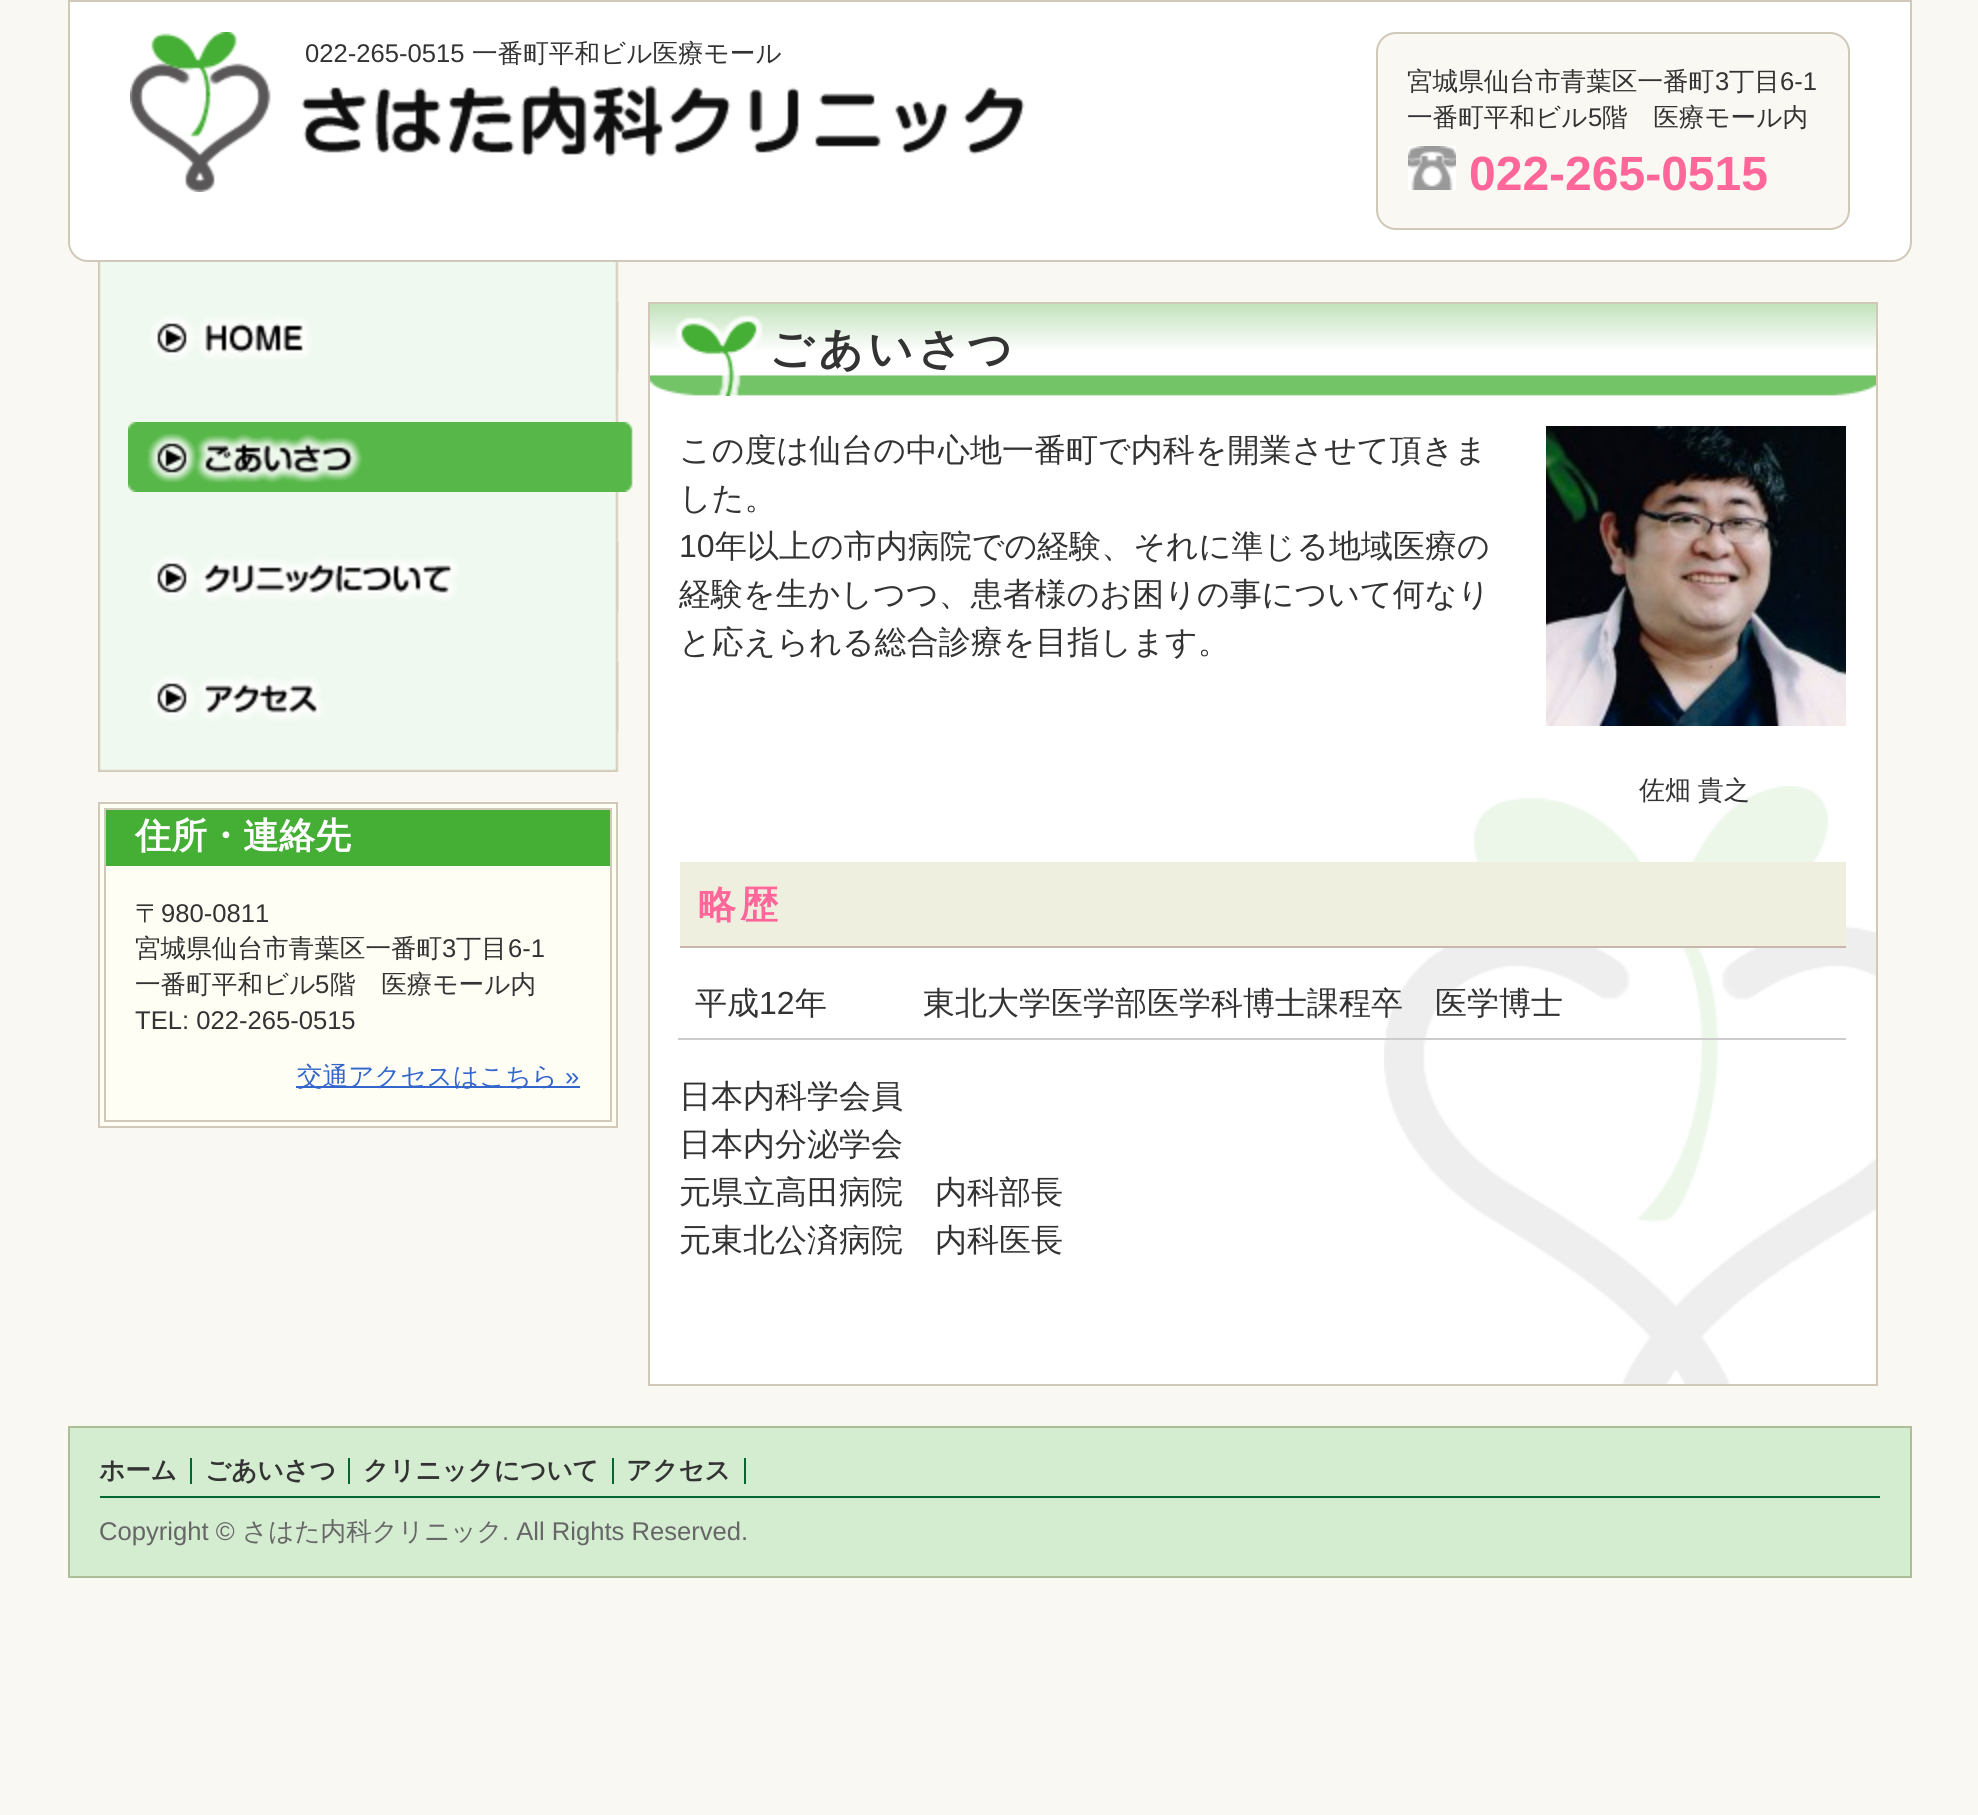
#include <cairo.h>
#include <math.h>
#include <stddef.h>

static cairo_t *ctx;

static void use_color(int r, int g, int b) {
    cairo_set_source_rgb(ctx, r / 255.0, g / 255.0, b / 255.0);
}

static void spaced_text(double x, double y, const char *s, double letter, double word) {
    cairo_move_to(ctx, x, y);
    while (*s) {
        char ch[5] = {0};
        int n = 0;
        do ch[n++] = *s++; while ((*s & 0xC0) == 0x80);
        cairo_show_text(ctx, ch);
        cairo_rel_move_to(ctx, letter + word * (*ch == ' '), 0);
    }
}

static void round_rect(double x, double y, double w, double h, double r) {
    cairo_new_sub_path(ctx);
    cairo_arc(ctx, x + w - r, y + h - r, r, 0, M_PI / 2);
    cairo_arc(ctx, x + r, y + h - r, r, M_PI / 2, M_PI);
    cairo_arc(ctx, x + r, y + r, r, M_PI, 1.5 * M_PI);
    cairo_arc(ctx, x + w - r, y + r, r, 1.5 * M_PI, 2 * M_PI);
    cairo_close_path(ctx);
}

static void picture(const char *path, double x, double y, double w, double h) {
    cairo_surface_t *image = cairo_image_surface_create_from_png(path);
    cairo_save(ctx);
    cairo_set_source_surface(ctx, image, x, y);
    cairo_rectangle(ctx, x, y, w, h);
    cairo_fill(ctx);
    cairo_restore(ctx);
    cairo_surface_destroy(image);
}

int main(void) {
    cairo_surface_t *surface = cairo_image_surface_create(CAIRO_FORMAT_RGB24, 1978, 1815);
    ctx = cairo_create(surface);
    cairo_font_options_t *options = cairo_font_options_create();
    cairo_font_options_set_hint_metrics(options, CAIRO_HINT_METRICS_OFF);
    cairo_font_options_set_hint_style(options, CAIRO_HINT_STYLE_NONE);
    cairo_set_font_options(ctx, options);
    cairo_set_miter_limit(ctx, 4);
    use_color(250, 248, 243);
    cairo_paint(ctx);
    use_color(255, 255, 255);
    cairo_new_path(ctx);
    cairo_move_to(ctx, 69, 1);
    cairo_line_to(ctx, 1911, 1);
    cairo_line_to(ctx, 1911, 242);
    cairo_curve_to(ctx, 1911, 252.5, 1902.5, 261, 1892, 261);
    cairo_line_to(ctx, 88, 261);
    cairo_curve_to(ctx, 77.5, 261, 69, 252.5, 69, 242);
    cairo_close_path(ctx);
    cairo_fill_preserve(ctx);
    use_color(208, 200, 184);
    cairo_stroke(ctx);
    picture("img1.png", 130, 32, 895, 160);
    cairo_select_font_face(ctx, "Liberation Sans", CAIRO_FONT_SLANT_NORMAL, CAIRO_FONT_WEIGHT_NORMAL);
    cairo_set_font_size(ctx, 25.6);
    use_color(51, 51, 51);
    cairo_move_to(ctx, 305, 62);
    cairo_show_text(ctx, "022-265-0515");
    cairo_select_font_face(ctx, "WenQuanYi Zen Hei Medium", CAIRO_FONT_SLANT_NORMAL, CAIRO_FONT_WEIGHT_NORMAL);
    cairo_move_to(ctx, 472, 62);
    cairo_show_text(ctx, "一番町平和ビル医療モール");
    use_color(250, 248, 243);
    round_rect(1377, 33, 472, 196, 19);
    cairo_fill_preserve(ctx);
    use_color(208, 200, 184);
    cairo_stroke(ctx);
    use_color(51, 51, 51);
    cairo_move_to(ctx, 1407, 90);
    cairo_show_text(ctx, "宮城県仙台市青葉区一番町");
    cairo_select_font_face(ctx, "Liberation Sans", CAIRO_FONT_SLANT_NORMAL, CAIRO_FONT_WEIGHT_NORMAL);
    cairo_move_to(ctx, 1715, 90);
    cairo_show_text(ctx, "3");
    cairo_select_font_face(ctx, "WenQuanYi Zen Hei Medium", CAIRO_FONT_SLANT_NORMAL, CAIRO_FONT_WEIGHT_NORMAL);
    cairo_move_to(ctx, 1729, 90);
    cairo_show_text(ctx, "丁目");
    cairo_select_font_face(ctx, "Liberation Sans", CAIRO_FONT_SLANT_NORMAL, CAIRO_FONT_WEIGHT_NORMAL);
    cairo_move_to(ctx, 1780, 90);
    cairo_show_text(ctx, "6-1");
    cairo_select_font_face(ctx, "WenQuanYi Zen Hei Medium", CAIRO_FONT_SLANT_NORMAL, CAIRO_FONT_WEIGHT_NORMAL);
    cairo_move_to(ctx, 1407, 126);
    cairo_show_text(ctx, "一番町平和ビル");
    cairo_select_font_face(ctx, "Liberation Sans", CAIRO_FONT_SLANT_NORMAL, CAIRO_FONT_WEIGHT_NORMAL);
    cairo_move_to(ctx, 1588, 126);
    cairo_show_text(ctx, "5");
    cairo_select_font_face(ctx, "WenQuanYi Zen Hei Medium", CAIRO_FONT_SLANT_NORMAL, CAIRO_FONT_WEIGHT_NORMAL);
    cairo_move_to(ctx, 1602, 126);
    cairo_show_text(ctx, "階　医療モール内");
    picture("img2.png", 1408, 146, 48, 44);
    cairo_select_font_face(ctx, "Liberation Sans", CAIRO_FONT_SLANT_NORMAL, CAIRO_FONT_WEIGHT_BOLD);
    cairo_set_font_size(ctx, 48);
    use_color(255, 102, 153);
    cairo_move_to(ctx, 1469, 190);
    cairo_show_text(ctx, "022-265-0515");
    picture("img3.png", 98, 262, 521, 510);
    picture("img4.png", 617, 302, 2, 70);
    picture("img5.png", 128, 422, 505, 70);
    picture("img4.png", 617, 542, 2, 70);
    picture("img4.png", 617, 662, 2, 70);
    use_color(255, 254, 245);
    cairo_rectangle(ctx, 99, 803, 518, 324);
    cairo_fill_preserve(ctx);
    use_color(208, 200, 184);
    cairo_stroke(ctx);
    cairo_rectangle(ctx, 105, 809, 506, 312);
    cairo_stroke(ctx);
    use_color(68, 175, 52);
    cairo_rectangle(ctx, 106, 810, 504, 56);
    cairo_fill(ctx);
    cairo_select_font_face(ctx, "WenQuanYi Zen Hei", CAIRO_FONT_SLANT_NORMAL, CAIRO_FONT_WEIGHT_BOLD);
    cairo_set_font_size(ctx, 36);
    use_color(255, 255, 255);
    cairo_move_to(ctx, 135, 848);
    cairo_show_text(ctx, "住所・連絡先");
    cairo_select_font_face(ctx, "WenQuanYi Zen Hei Medium", CAIRO_FONT_SLANT_NORMAL, CAIRO_FONT_WEIGHT_NORMAL);
    cairo_set_font_size(ctx, 25.6);
    use_color(51, 51, 51);
    cairo_move_to(ctx, 135, 922);
    cairo_show_text(ctx, "〒");
    cairo_select_font_face(ctx, "Liberation Sans", CAIRO_FONT_SLANT_NORMAL, CAIRO_FONT_WEIGHT_NORMAL);
    cairo_move_to(ctx, 161, 922);
    cairo_show_text(ctx, "980-0811");
    cairo_select_font_face(ctx, "WenQuanYi Zen Hei Medium", CAIRO_FONT_SLANT_NORMAL, CAIRO_FONT_WEIGHT_NORMAL);
    cairo_move_to(ctx, 135, 957);
    cairo_show_text(ctx, "宮城県仙台市青葉区一番町");
    cairo_select_font_face(ctx, "Liberation Sans", CAIRO_FONT_SLANT_NORMAL, CAIRO_FONT_WEIGHT_NORMAL);
    cairo_move_to(ctx, 442, 957);
    cairo_show_text(ctx, "3");
    cairo_select_font_face(ctx, "WenQuanYi Zen Hei Medium", CAIRO_FONT_SLANT_NORMAL, CAIRO_FONT_WEIGHT_NORMAL);
    cairo_move_to(ctx, 456, 957);
    cairo_show_text(ctx, "丁目");
    cairo_select_font_face(ctx, "Liberation Sans", CAIRO_FONT_SLANT_NORMAL, CAIRO_FONT_WEIGHT_NORMAL);
    cairo_move_to(ctx, 508, 957);
    cairo_show_text(ctx, "6-1");
    cairo_select_font_face(ctx, "WenQuanYi Zen Hei Medium", CAIRO_FONT_SLANT_NORMAL, CAIRO_FONT_WEIGHT_NORMAL);
    cairo_move_to(ctx, 135, 993);
    cairo_show_text(ctx, "一番町平和ビル");
    cairo_select_font_face(ctx, "Liberation Sans", CAIRO_FONT_SLANT_NORMAL, CAIRO_FONT_WEIGHT_NORMAL);
    cairo_move_to(ctx, 315, 993);
    cairo_show_text(ctx, "5");
    cairo_select_font_face(ctx, "WenQuanYi Zen Hei Medium", CAIRO_FONT_SLANT_NORMAL, CAIRO_FONT_WEIGHT_NORMAL);
    cairo_move_to(ctx, 330, 993);
    cairo_show_text(ctx, "階　医療モール内");
    cairo_select_font_face(ctx, "Liberation Sans", CAIRO_FONT_SLANT_NORMAL, CAIRO_FONT_WEIGHT_NORMAL);
    cairo_move_to(ctx, 135, 1029);
    cairo_show_text(ctx, "TEL: 022-265-0515");
    use_color(51, 102, 204);
    cairo_rectangle(ctx, 296, 1086, 284, 2);
    cairo_fill(ctx);
    cairo_select_font_face(ctx, "WenQuanYi Zen Hei Medium", CAIRO_FONT_SLANT_NORMAL, CAIRO_FONT_WEIGHT_NORMAL);
    cairo_move_to(ctx, 297, 1085);
    cairo_show_text(ctx, "交通アクセスはこちら");
    cairo_select_font_face(ctx, "Liberation Sans", CAIRO_FONT_SLANT_NORMAL, CAIRO_FONT_WEIGHT_NORMAL);
    cairo_move_to(ctx, 565, 1085);
    cairo_show_text(ctx, "»");
    use_color(255, 255, 255);
    cairo_rectangle(ctx, 650, 396, 1226, 988);
    cairo_fill(ctx);
    picture("img6.png", 1384, 786, 492, 598);
    cairo_rectangle(ctx, 649, 303, 1228, 1082);
    use_color(208, 200, 184);
    cairo_stroke(ctx);
    picture("img7.png", 650, 304, 1226, 92);
    cairo_select_font_face(ctx, "WenQuanYi Zen Hei", CAIRO_FONT_SLANT_NORMAL, CAIRO_FONT_WEIGHT_BOLD);
    cairo_set_font_size(ctx, 44);
    use_color(51, 51, 51);
    spaced_text(769, 364, "ごあいさつ", 4.5, 0);
    cairo_select_font_face(ctx, "WenQuanYi Zen Hei Medium", CAIRO_FONT_SLANT_NORMAL, CAIRO_FONT_WEIGHT_NORMAL);
    cairo_set_font_size(ctx, 32);
    cairo_move_to(ctx, 679, 461);
    cairo_show_text(ctx, "この度は仙台の中心地一番町で内科を開業させて頂きま");
    cairo_move_to(ctx, 679, 509);
    cairo_show_text(ctx, "した。");
    cairo_select_font_face(ctx, "Liberation Sans", CAIRO_FONT_SLANT_NORMAL, CAIRO_FONT_WEIGHT_NORMAL);
    cairo_move_to(ctx, 679, 557);
    cairo_show_text(ctx, "10");
    cairo_select_font_face(ctx, "WenQuanYi Zen Hei Medium", CAIRO_FONT_SLANT_NORMAL, CAIRO_FONT_WEIGHT_NORMAL);
    cairo_move_to(ctx, 715, 557);
    cairo_show_text(ctx, "年以上の市内病院での経験、それに準じる地域医療の");
    cairo_move_to(ctx, 679, 605);
    cairo_show_text(ctx, "経験を生かしつつ、患者様のお困りの事について何なり");
    cairo_move_to(ctx, 679, 653);
    cairo_show_text(ctx, "と応えられる総合診療を目指します。");
    picture("img8.png", 1546, 426, 300, 300);
    cairo_set_font_size(ctx, 26);
    spaced_text(1639, 799, "佐畑 貴之", 0, -1);
    use_color(239, 239, 224);
    cairo_rectangle(ctx, 680, 862, 1166, 84);
    cairo_fill(ctx);
    use_color(199, 183, 173);
    cairo_rectangle(ctx, 680, 946, 1166, 2);
    cairo_fill(ctx);
    cairo_select_font_face(ctx, "WenQuanYi Zen Hei", CAIRO_FONT_SLANT_NORMAL, CAIRO_FONT_WEIGHT_BOLD);
    cairo_set_font_size(ctx, 38);
    use_color(255, 102, 153);
    spaced_text(698, 918, "略歴", 4, 0);
    cairo_select_font_face(ctx, "WenQuanYi Zen Hei Medium", CAIRO_FONT_SLANT_NORMAL, CAIRO_FONT_WEIGHT_NORMAL);
    cairo_set_font_size(ctx, 32);
    use_color(51, 51, 51);
    cairo_move_to(ctx, 695, 1014);
    cairo_show_text(ctx, "平成");
    cairo_select_font_face(ctx, "Liberation Sans", CAIRO_FONT_SLANT_NORMAL, CAIRO_FONT_WEIGHT_NORMAL);
    cairo_move_to(ctx, 759, 1014);
    cairo_show_text(ctx, "12");
    cairo_select_font_face(ctx, "WenQuanYi Zen Hei Medium", CAIRO_FONT_SLANT_NORMAL, CAIRO_FONT_WEIGHT_NORMAL);
    cairo_move_to(ctx, 795, 1014);
    cairo_show_text(ctx, "年");
    use_color(204, 204, 204);
    cairo_rectangle(ctx, 678, 1038, 1168, 2);
    cairo_fill(ctx);
    use_color(51, 51, 51);
    cairo_move_to(ctx, 923, 1014);
    cairo_show_text(ctx, "東北大学医学部医学科博士課程卒　医学博士");
    cairo_move_to(ctx, 679, 1107);
    cairo_show_text(ctx, "日本内科学会員");
    cairo_move_to(ctx, 679, 1155);
    cairo_show_text(ctx, "日本内分泌学会");
    cairo_move_to(ctx, 679, 1203);
    cairo_show_text(ctx, "元県立高田病院　内科部長");
    cairo_move_to(ctx, 679, 1251);
    cairo_show_text(ctx, "元東北公済病院　内科医長");
    use_color(212, 237, 209);
    cairo_rectangle(ctx, 69, 1427, 1842, 150);
    cairo_fill_preserve(ctx);
    use_color(174, 191, 151);
    cairo_stroke(ctx);
    use_color(0, 102, 51);
    cairo_rectangle(ctx, 190, 1458, 2, 26);
    cairo_fill(ctx);
    cairo_select_font_face(ctx, "WenQuanYi Zen Hei", CAIRO_FONT_SLANT_NORMAL, CAIRO_FONT_WEIGHT_BOLD);
    cairo_set_font_size(ctx, 25.6);
    use_color(51, 51, 51);
    cairo_move_to(ctx, 99, 1479);
    cairo_show_text(ctx, "ホーム");
    use_color(0, 102, 51);
    cairo_rectangle(ctx, 348, 1458, 2, 26);
    cairo_fill(ctx);
    use_color(51, 51, 51);
    cairo_move_to(ctx, 205, 1479);
    cairo_show_text(ctx, "ごあいさつ");
    use_color(0, 102, 51);
    cairo_rectangle(ctx, 612, 1458, 2, 26);
    cairo_fill(ctx);
    use_color(51, 51, 51);
    cairo_move_to(ctx, 363, 1479);
    cairo_show_text(ctx, "クリニックについて");
    use_color(0, 102, 51);
    cairo_rectangle(ctx, 744, 1458, 2, 26);
    cairo_fill(ctx);
    use_color(51, 51, 51);
    cairo_move_to(ctx, 626, 1479);
    cairo_show_text(ctx, "アクセス");
    use_color(0, 102, 51);
    cairo_rectangle(ctx, 100, 1496, 1780, 2);
    cairo_fill(ctx);
    cairo_select_font_face(ctx, "Liberation Sans", CAIRO_FONT_SLANT_NORMAL, CAIRO_FONT_WEIGHT_NORMAL);
    use_color(102, 102, 102);
    cairo_move_to(ctx, 99, 1540);
    cairo_show_text(ctx, "Copyright ©");
    cairo_select_font_face(ctx, "WenQuanYi Zen Hei Medium", CAIRO_FONT_SLANT_NORMAL, CAIRO_FONT_WEIGHT_NORMAL);
    cairo_move_to(ctx, 242, 1540);
    cairo_show_text(ctx, "さはた内科クリニック");
    cairo_select_font_face(ctx, "Liberation Sans", CAIRO_FONT_SLANT_NORMAL, CAIRO_FONT_WEIGHT_NORMAL);
    cairo_move_to(ctx, 502, 1540);
    cairo_show_text(ctx, ". All Rights Reserved.");
    cairo_surface_write_to_png(surface, "result.png");
    cairo_font_options_destroy(options);
    cairo_destroy(ctx);
    cairo_surface_destroy(surface);
    return 0;
}
